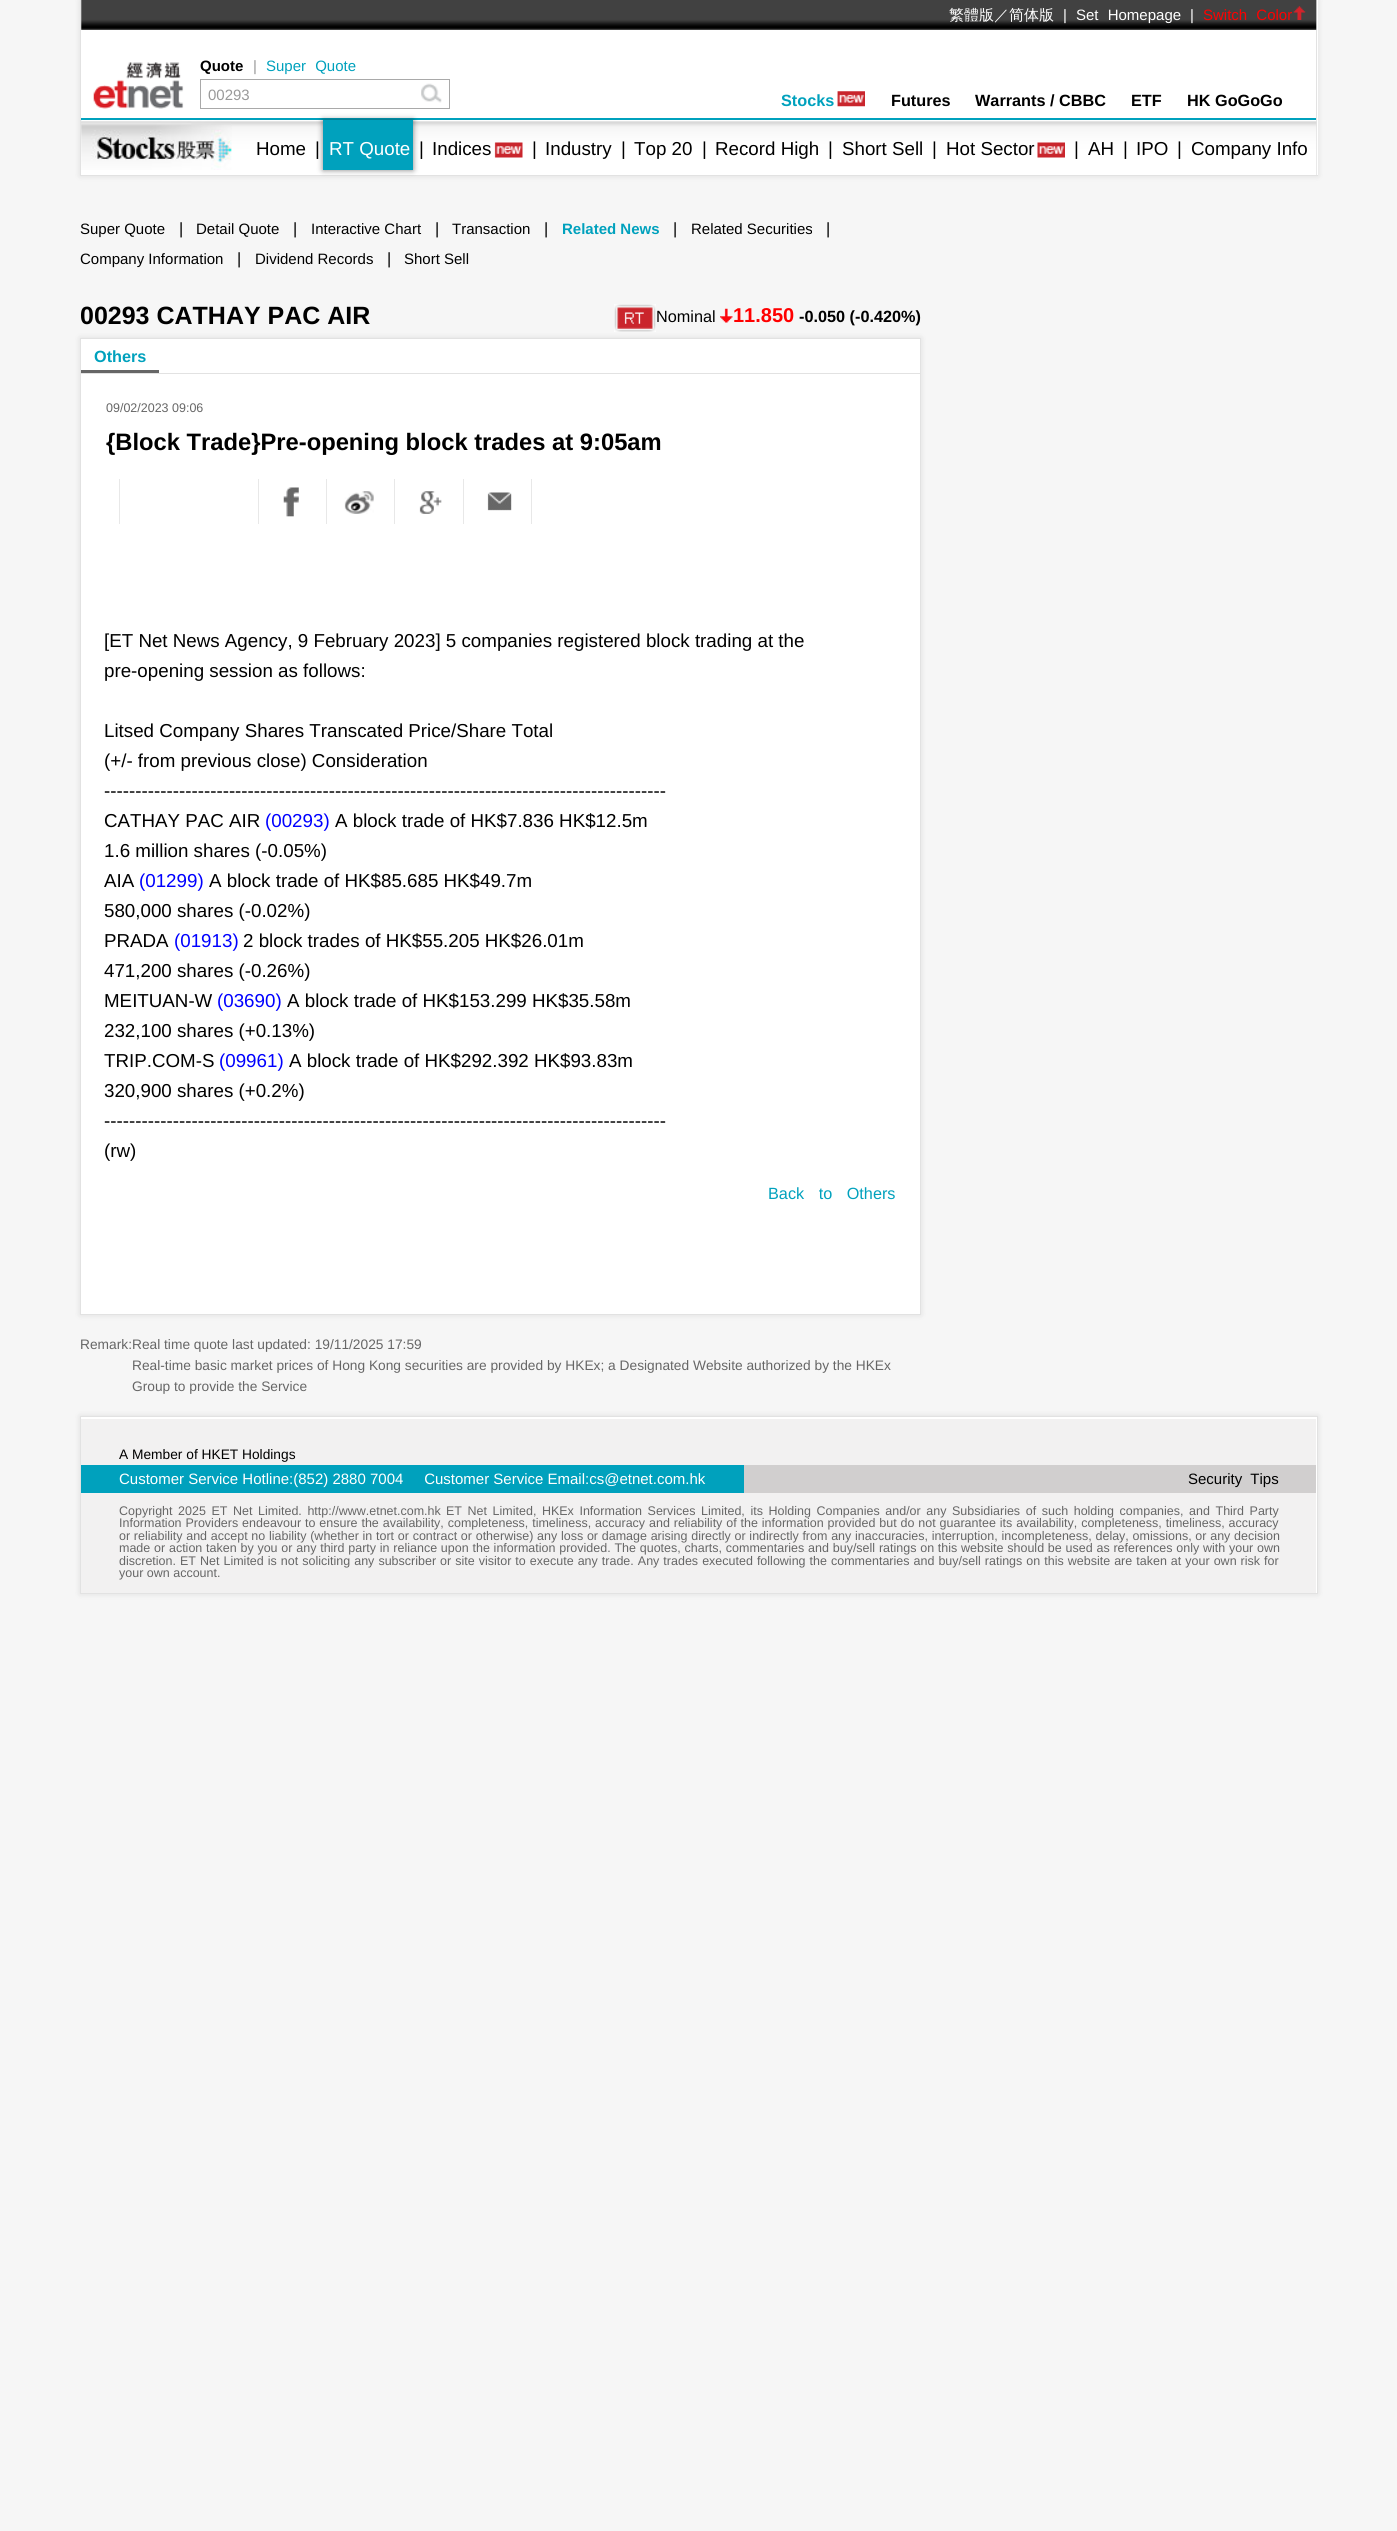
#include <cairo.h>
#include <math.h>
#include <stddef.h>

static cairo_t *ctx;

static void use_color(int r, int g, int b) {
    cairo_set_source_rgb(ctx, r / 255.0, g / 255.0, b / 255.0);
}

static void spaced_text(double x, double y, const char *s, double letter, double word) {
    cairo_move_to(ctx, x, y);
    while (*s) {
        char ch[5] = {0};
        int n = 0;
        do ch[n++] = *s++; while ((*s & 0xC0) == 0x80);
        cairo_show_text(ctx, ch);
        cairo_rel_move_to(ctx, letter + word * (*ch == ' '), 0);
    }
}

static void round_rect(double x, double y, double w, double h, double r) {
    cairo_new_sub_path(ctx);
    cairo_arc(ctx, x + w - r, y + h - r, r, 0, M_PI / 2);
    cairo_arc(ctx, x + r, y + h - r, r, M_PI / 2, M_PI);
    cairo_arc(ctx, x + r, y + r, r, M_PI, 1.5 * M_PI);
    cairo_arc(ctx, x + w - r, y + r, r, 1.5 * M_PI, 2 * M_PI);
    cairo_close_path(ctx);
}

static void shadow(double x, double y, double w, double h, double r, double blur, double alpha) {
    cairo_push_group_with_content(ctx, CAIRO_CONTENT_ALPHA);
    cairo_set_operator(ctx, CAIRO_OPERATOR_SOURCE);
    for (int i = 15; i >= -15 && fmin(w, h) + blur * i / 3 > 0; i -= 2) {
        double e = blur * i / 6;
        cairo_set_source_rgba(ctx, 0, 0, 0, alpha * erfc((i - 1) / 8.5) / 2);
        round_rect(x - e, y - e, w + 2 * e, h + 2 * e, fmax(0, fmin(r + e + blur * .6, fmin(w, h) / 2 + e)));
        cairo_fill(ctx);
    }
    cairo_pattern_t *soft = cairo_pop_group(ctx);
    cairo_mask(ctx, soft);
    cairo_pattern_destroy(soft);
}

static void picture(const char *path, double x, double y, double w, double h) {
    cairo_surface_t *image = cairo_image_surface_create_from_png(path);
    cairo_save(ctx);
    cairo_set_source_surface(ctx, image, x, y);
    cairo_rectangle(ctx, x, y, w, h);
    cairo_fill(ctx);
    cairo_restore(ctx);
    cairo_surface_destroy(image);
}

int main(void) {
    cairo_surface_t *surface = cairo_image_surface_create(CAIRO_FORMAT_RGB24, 1397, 2531);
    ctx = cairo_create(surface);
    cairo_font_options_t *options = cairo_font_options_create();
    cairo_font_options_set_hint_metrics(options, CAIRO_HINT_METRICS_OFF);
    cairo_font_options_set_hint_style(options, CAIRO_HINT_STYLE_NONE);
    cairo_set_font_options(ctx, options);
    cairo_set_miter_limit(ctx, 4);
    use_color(246, 246, 246);
    cairo_paint(ctx);
    use_color(0, 0, 0);
    shadow(80, 0, 1238, 176, 0, 3, 0.1);
    use_color(255, 255, 255);
    cairo_rectangle(ctx, 81, 0, 1237, 175);
    cairo_fill(ctx);
    use_color(226, 226, 226);
    cairo_rectangle(ctx, 1316, 0, 1, 176);
    cairo_fill(ctx);
    cairo_rectangle(ctx, 80, 175, 1238, 1);
    cairo_fill(ctx);
    cairo_rectangle(ctx, 80, 0, 1, 176);
    cairo_fill(ctx);
    picture("img1.png", 81, 0, 1236, 30);
    cairo_select_font_face(ctx, "WenQuanYi Zen Hei Medium", CAIRO_FONT_SLANT_NORMAL, CAIRO_FONT_WEIGHT_NORMAL);
    cairo_set_font_size(ctx, 15);
    use_color(255, 255, 255);
    cairo_move_to(ctx, 949, 20);
    cairo_show_text(ctx, "繁體版／简体版");
    cairo_select_font_face(ctx, "Liberation Sans", CAIRO_FONT_SLANT_NORMAL, CAIRO_FONT_WEIGHT_NORMAL);
    cairo_move_to(ctx, 1063, 20);
    cairo_show_text(ctx, "|");
    spaced_text(1076, 20, "Set Homepage", 0, 5);
    cairo_move_to(ctx, 1190, 20);
    cairo_show_text(ctx, "|");
    use_color(255, 0, 0);
    spaced_text(1203, 20, "Switch Color", 0, 5);
    picture("img2.png", 1293, 6, 13, 14);
    picture("img3.png", 93, 62, 91, 47);
    cairo_select_font_face(ctx, "Liberation Sans", CAIRO_FONT_SLANT_NORMAL, CAIRO_FONT_WEIGHT_BOLD);
    use_color(0, 0, 0);
    cairo_move_to(ctx, 200, 71);
    cairo_show_text(ctx, "Quote");
    cairo_select_font_face(ctx, "Liberation Sans", CAIRO_FONT_SLANT_NORMAL, CAIRO_FONT_WEIGHT_NORMAL);
    use_color(153, 153, 153);
    cairo_move_to(ctx, 253, 71);
    cairo_show_text(ctx, "|");
    use_color(0, 161, 189);
    spaced_text(266, 71, "Super Quote", 0, 5);
    cairo_rectangle(ctx, 200.5, 79.5, 249, 29);
    use_color(169, 169, 169);
    cairo_set_line_width(ctx, 1);
    cairo_stroke(ctx);
    use_color(153, 153, 153);
    cairo_move_to(ctx, 208, 100);
    cairo_show_text(ctx, "00293");
    picture("img4.png", 421, 83, 21, 20);
    cairo_select_font_face(ctx, "Liberation Sans", CAIRO_FONT_SLANT_NORMAL, CAIRO_FONT_WEIGHT_BOLD);
    cairo_set_font_size(ctx, 16.25);
    use_color(0, 161, 189);
    cairo_move_to(ctx, 781, 106);
    cairo_show_text(ctx, "Stocks");
    picture("img5.png", 837, 91, 28, 16);
    use_color(0, 0, 0);
    cairo_move_to(ctx, 891, 106);
    cairo_show_text(ctx, "Futures");
    cairo_move_to(ctx, 975, 106);
    cairo_show_text(ctx, "Warrants / CBBC");
    cairo_move_to(ctx, 1131, 106);
    cairo_show_text(ctx, "ETF");
    cairo_move_to(ctx, 1187, 106);
    cairo_show_text(ctx, "HK GoGoGo");
    use_color(0, 161, 189);
    cairo_rectangle(ctx, 81, 118, 1235, 3);
    cairo_fill(ctx);
    picture("img6.png", 81, 120, 1236, 55);
    picture("img7.png", 81, 120, 151, 50);
    cairo_select_font_face(ctx, "Liberation Sans", CAIRO_FONT_SLANT_NORMAL, CAIRO_FONT_WEIGHT_NORMAL);
    cairo_set_font_size(ctx, 18.75);
    use_color(0, 0, 0);
    cairo_move_to(ctx, 256, 155);
    cairo_show_text(ctx, "Home");
    cairo_move_to(ctx, 315, 155);
    cairo_show_text(ctx, "|");
    use_color(0, 0, 0);
    shadow(323, 120, 90, 50, 0, 3, 0.5);
    use_color(0, 161, 189);
    cairo_rectangle(ctx, 323, 120, 90, 50);
    cairo_fill(ctx);
    use_color(255, 255, 255);
    cairo_move_to(ctx, 329, 155);
    cairo_show_text(ctx, "RT Quote");
    use_color(0, 0, 0);
    cairo_move_to(ctx, 419, 155);
    cairo_show_text(ctx, "|");
    cairo_move_to(ctx, 432, 155);
    cairo_show_text(ctx, "Indices");
    picture("img8.png", 494, 142, 29, 16);
    cairo_move_to(ctx, 532, 155);
    cairo_show_text(ctx, "|");
    cairo_move_to(ctx, 545, 155);
    cairo_show_text(ctx, "Industry");
    cairo_move_to(ctx, 621, 155);
    cairo_show_text(ctx, "|");
    cairo_move_to(ctx, 634, 155);
    cairo_show_text(ctx, "Top 20");
    cairo_move_to(ctx, 702, 155);
    cairo_show_text(ctx, "|");
    cairo_move_to(ctx, 715, 155);
    cairo_show_text(ctx, "Record High");
    cairo_move_to(ctx, 828, 155);
    cairo_show_text(ctx, "|");
    cairo_move_to(ctx, 842, 155);
    cairo_show_text(ctx, "Short Sell");
    cairo_move_to(ctx, 932, 155);
    cairo_show_text(ctx, "|");
    cairo_move_to(ctx, 946, 155);
    cairo_show_text(ctx, "Hot Sector");
    picture("img9.png", 1037, 142, 28, 16);
    cairo_move_to(ctx, 1074, 155);
    cairo_show_text(ctx, "|");
    cairo_move_to(ctx, 1088, 155);
    cairo_show_text(ctx, "AH");
    cairo_move_to(ctx, 1123, 155);
    cairo_show_text(ctx, "|");
    cairo_move_to(ctx, 1136, 155);
    cairo_show_text(ctx, "IPO");
    cairo_move_to(ctx, 1177, 155);
    cairo_show_text(ctx, "|");
    cairo_move_to(ctx, 1191, 155);
    cairo_show_text(ctx, "Company Info");
    cairo_set_font_size(ctx, 15);
    cairo_move_to(ctx, 80, 234);
    cairo_show_text(ctx, "Super Quote");
    cairo_set_font_size(ctx, 16.25);
    cairo_move_to(ctx, 179, 234);
    cairo_show_text(ctx, "|");
    cairo_set_font_size(ctx, 15);
    cairo_move_to(ctx, 196, 234);
    cairo_show_text(ctx, "Detail Quote");
    cairo_set_font_size(ctx, 16.25);
    cairo_move_to(ctx, 293, 234);
    cairo_show_text(ctx, "|");
    cairo_set_font_size(ctx, 15);
    cairo_move_to(ctx, 311, 234);
    cairo_show_text(ctx, "Interactive Chart");
    cairo_set_font_size(ctx, 16.25);
    cairo_move_to(ctx, 435, 234);
    cairo_show_text(ctx, "|");
    cairo_set_font_size(ctx, 15);
    cairo_move_to(ctx, 452, 234);
    cairo_show_text(ctx, "Transaction");
    cairo_set_font_size(ctx, 16.25);
    cairo_move_to(ctx, 544, 234);
    cairo_show_text(ctx, "|");
    cairo_select_font_face(ctx, "Liberation Sans", CAIRO_FONT_SLANT_NORMAL, CAIRO_FONT_WEIGHT_BOLD);
    cairo_set_font_size(ctx, 15);
    use_color(0, 161, 189);
    cairo_move_to(ctx, 562, 234);
    cairo_show_text(ctx, "Related News");
    cairo_select_font_face(ctx, "Liberation Sans", CAIRO_FONT_SLANT_NORMAL, CAIRO_FONT_WEIGHT_NORMAL);
    cairo_set_font_size(ctx, 16.25);
    use_color(0, 0, 0);
    cairo_move_to(ctx, 673, 234);
    cairo_show_text(ctx, "|");
    cairo_set_font_size(ctx, 15);
    cairo_move_to(ctx, 691, 234);
    cairo_show_text(ctx, "Related Securities");
    cairo_set_font_size(ctx, 16.25);
    cairo_move_to(ctx, 826, 234);
    cairo_show_text(ctx, "|");
    cairo_set_font_size(ctx, 15);
    cairo_move_to(ctx, 80, 264);
    cairo_show_text(ctx, "Company Information");
    cairo_set_font_size(ctx, 16.25);
    cairo_move_to(ctx, 237, 264);
    cairo_show_text(ctx, "|");
    cairo_set_font_size(ctx, 15);
    cairo_move_to(ctx, 255, 264);
    cairo_show_text(ctx, "Dividend Records");
    cairo_set_font_size(ctx, 16.25);
    cairo_move_to(ctx, 387, 264);
    cairo_show_text(ctx, "|");
    cairo_set_font_size(ctx, 15);
    cairo_move_to(ctx, 404, 264);
    cairo_show_text(ctx, "Short Sell");
    cairo_select_font_face(ctx, "Liberation Sans", CAIRO_FONT_SLANT_NORMAL, CAIRO_FONT_WEIGHT_BOLD);
    cairo_set_font_size(ctx, 25);
    cairo_move_to(ctx, 80, 324);
    cairo_show_text(ctx, "00293 CATHAY PAC AIR");
    picture("img10.png", 614, 304, 42, 28);
    cairo_select_font_face(ctx, "Liberation Sans", CAIRO_FONT_SLANT_NORMAL, CAIRO_FONT_WEIGHT_NORMAL);
    cairo_set_font_size(ctx, 16.25);
    cairo_move_to(ctx, 656, 322);
    cairo_show_text(ctx, "Nominal");
    picture("img11.png", 720, 308, 13, 15);
    cairo_select_font_face(ctx, "Liberation Sans", CAIRO_FONT_SLANT_NORMAL, CAIRO_FONT_WEIGHT_BOLD);
    cairo_set_font_size(ctx, 20);
    use_color(255, 0, 0);
    cairo_move_to(ctx, 733, 322);
    cairo_show_text(ctx, "11.850");
    cairo_set_font_size(ctx, 16.25);
    use_color(0, 0, 0);
    cairo_move_to(ctx, 799, 322);
    cairo_show_text(ctx, "-0.050 (-0.420%)");
    use_color(0, 0, 0);
    shadow(80, 338, 841, 977, 0, 3, 0.1);
    use_color(255, 255, 255);
    cairo_rectangle(ctx, 80.5, 338.5, 840, 976);
    cairo_fill_preserve(ctx);
    use_color(226, 226, 226);
    cairo_stroke(ctx);
    cairo_rectangle(ctx, 81, 373, 839, 1);
    cairo_fill(ctx);
    use_color(102, 102, 102);
    cairo_rectangle(ctx, 81, 370, 78, 3);
    cairo_fill(ctx);
    use_color(0, 161, 189);
    cairo_move_to(ctx, 94, 362);
    cairo_show_text(ctx, "Others");
    cairo_select_font_face(ctx, "Liberation Sans", CAIRO_FONT_SLANT_NORMAL, CAIRO_FONT_WEIGHT_NORMAL);
    cairo_set_font_size(ctx, 12.5);
    use_color(102, 102, 102);
    cairo_move_to(ctx, 106, 412);
    cairo_show_text(ctx, "09/02/2023 09:06");
    cairo_select_font_face(ctx, "Liberation Sans", CAIRO_FONT_SLANT_NORMAL, CAIRO_FONT_WEIGHT_BOLD);
    cairo_set_font_size(ctx, 23.75);
    use_color(0, 0, 0);
    cairo_move_to(ctx, 106, 450);
    cairo_show_text(ctx, "{Block Trade}Pre-opening block trades at 9:05am");
    use_color(232, 232, 232);
    cairo_rectangle(ctx, 258, 479, 1, 45);
    cairo_fill(ctx);
    cairo_rectangle(ctx, 119, 479, 1, 45);
    cairo_fill(ctx);
    picture("img12.png", 283, 487, 16, 30);
    cairo_rectangle(ctx, 326, 479, 1, 45);
    cairo_fill(ctx);
    picture("img13.png", 344, 491, 30, 23);
    cairo_rectangle(ctx, 394, 479, 1, 45);
    cairo_fill(ctx);
    picture("img14.png", 419, 491, 23, 23);
    cairo_rectangle(ctx, 463, 479, 1, 45);
    cairo_fill(ctx);
    picture("img15.png", 487, 492, 25, 19);
    cairo_rectangle(ctx, 531, 479, 1, 45);
    cairo_fill(ctx);
    cairo_select_font_face(ctx, "Liberation Sans", CAIRO_FONT_SLANT_NORMAL, CAIRO_FONT_WEIGHT_NORMAL);
    cairo_set_font_size(ctx, 18.75);
    use_color(0, 0, 0);
    cairo_move_to(ctx, 104, 647);
    cairo_show_text(ctx, "[ET Net News Agency, 9 February 2023] 5 companies registered block trading at the");
    cairo_move_to(ctx, 104, 677);
    cairo_show_text(ctx, "pre-opening session as follows:");
    cairo_move_to(ctx, 104, 737);
    cairo_show_text(ctx, "Litsed Company Shares Transcated Price/Share Total");
    cairo_move_to(ctx, 104, 767);
    cairo_show_text(ctx, "(+/- from previous close) Consideration");
    cairo_move_to(ctx, 104, 797);
    cairo_show_text(ctx, "------------------------------------------------------------------------------------------");
    cairo_move_to(ctx, 104, 827);
    cairo_show_text(ctx, "CATHAY PAC AIR");
    use_color(0, 0, 255);
    cairo_move_to(ctx, 265, 827);
    cairo_show_text(ctx, "(00293)");
    use_color(0, 0, 0);
    cairo_move_to(ctx, 335, 827);
    cairo_show_text(ctx, "A block trade of HK$7.836 HK$12.5m");
    cairo_move_to(ctx, 104, 857);
    cairo_show_text(ctx, "1.6 million shares (-0.05%)");
    cairo_move_to(ctx, 104, 887);
    cairo_show_text(ctx, "AIA");
    use_color(0, 0, 255);
    cairo_move_to(ctx, 139, 887);
    cairo_show_text(ctx, "(01299)");
    use_color(0, 0, 0);
    cairo_move_to(ctx, 209, 887);
    cairo_show_text(ctx, "A block trade of HK$85.685 HK$49.7m");
    cairo_move_to(ctx, 104, 917);
    cairo_show_text(ctx, "580,000 shares (-0.02%)");
    cairo_move_to(ctx, 104, 947);
    cairo_show_text(ctx, "PRADA");
    use_color(0, 0, 255);
    cairo_move_to(ctx, 174, 947);
    cairo_show_text(ctx, "(01913)");
    use_color(0, 0, 0);
    cairo_move_to(ctx, 243, 947);
    cairo_show_text(ctx, "2 block trades of HK$55.205 HK$26.01m");
    cairo_move_to(ctx, 104, 977);
    cairo_show_text(ctx, "471,200 shares (-0.26%)");
    cairo_move_to(ctx, 104, 1007);
    cairo_show_text(ctx, "MEITUAN-W");
    use_color(0, 0, 255);
    cairo_move_to(ctx, 217, 1007);
    cairo_show_text(ctx, "(03690)");
    use_color(0, 0, 0);
    cairo_move_to(ctx, 287, 1007);
    cairo_show_text(ctx, "A block trade of HK$153.299 HK$35.58m");
    cairo_move_to(ctx, 104, 1037);
    cairo_show_text(ctx, "232,100 shares (+0.13%)");
    cairo_move_to(ctx, 104, 1067);
    cairo_show_text(ctx, "TRIP.COM-S");
    use_color(0, 0, 255);
    cairo_move_to(ctx, 219, 1067);
    cairo_show_text(ctx, "(09961)");
    use_color(0, 0, 0);
    cairo_move_to(ctx, 289, 1067);
    cairo_show_text(ctx, "A block trade of HK$292.392 HK$93.83m");
    cairo_move_to(ctx, 104, 1097);
    cairo_show_text(ctx, "320,900 shares (+0.2%)");
    cairo_move_to(ctx, 104, 1127);
    cairo_show_text(ctx, "------------------------------------------------------------------------------------------");
    cairo_move_to(ctx, 104, 1157);
    cairo_show_text(ctx, "(rw)");
    cairo_set_font_size(ctx, 16.25);
    use_color(0, 161, 189);
    spaced_text(768, 1199, "Back to Others", 0, 10);
    cairo_set_font_size(ctx, 13.75);
    use_color(102, 102, 102);
    cairo_move_to(ctx, 80, 1349);
    cairo_show_text(ctx, "Remark:Real time quote last updated: 19/11/2025 17:59");
    cairo_move_to(ctx, 132, 1370);
    cairo_show_text(ctx, "Real-time basic market prices of Hong Kong securities are provided by HKEx; a Designated Website authorized by the HKEx");
    cairo_move_to(ctx, 132, 1391);
    cairo_show_text(ctx, "Group to provide the Service");
    use_color(0, 0, 0);
    shadow(80, 1416, 1238, 178, 0, 3, 0.1);
    use_color(255, 255, 255);
    cairo_rectangle(ctx, 80.5, 1416.5, 1237, 177);
    cairo_fill_preserve(ctx);
    use_color(226, 226, 226);
    cairo_stroke(ctx);
    use_color(242, 241, 241);
    cairo_rectangle(ctx, 81, 1419, 1235, 174);
    cairo_fill(ctx);
    use_color(0, 0, 0);
    cairo_move_to(ctx, 119, 1459);
    cairo_show_text(ctx, "A Member of HKET Holdings");
    use_color(0, 161, 189);
    cairo_rectangle(ctx, 81, 1465, 663, 28);
    cairo_fill(ctx);
    cairo_set_font_size(ctx, 15);
    use_color(255, 255, 255);
    cairo_move_to(ctx, 119, 1484);
    cairo_show_text(ctx, "Customer Service Hotline:(852) 2880 7004     Customer Service Email:cs@etnet.com.hk");
    use_color(209, 207, 207);
    cairo_rectangle(ctx, 744, 1465, 572, 28);
    cairo_fill(ctx);
    use_color(0, 0, 0);
    spaced_text(1188, 1484, "Security Tips", 0, 4);
    cairo_set_font_size(ctx, 12.5);
    use_color(102, 102, 102);
    spaced_text(119, 1515, "Copyright 2025 ET Net Limited. http://www.etnet.com.hk", 0, 2.1);
    spaced_text(446, 1515, "ET Net Limited, HKEx Information Services Limited, its Holding Companies and/or any Subsidiaries of such holding companies, and Third Party", 0, 2.1);
    spaced_text(119, 1527, "Information Providers endeavour to ensure the availability, completeness, timeliness, accuracy and reliability of the information provided but do not guarantee its availability, completeness, timeliness, accuracy", 0, 0.4);
    spaced_text(119, 1540, "or reliability and accept no liability (whether in tort or contract or otherwise) any loss or damage arising directly or indirectly from any inaccuracies, interruption, incompleteness, delay, omissions, or any decision", 0, 0.25);
    spaced_text(119, 1552, "made or action taken by you or any third party in reliance upon the information provided. The quotes, charts, commentaries and buy/sell ratings on this website should be used as references only with your own", 0, 0.3);
    spaced_text(119, 1565, "discretion. ET Net Limited is not soliciting any subscriber or site visitor to execute any trade. Any trades executed following the commentaries and buy/sell ratings on this website are taken at your own risk for", 0, 0.55);
    cairo_move_to(ctx, 119, 1577);
    cairo_show_text(ctx, "your own account.");
    cairo_surface_write_to_png(surface, "result.png");
    cairo_font_options_destroy(options);
    cairo_destroy(ctx);
    cairo_surface_destroy(surface);
    return 0;
}
